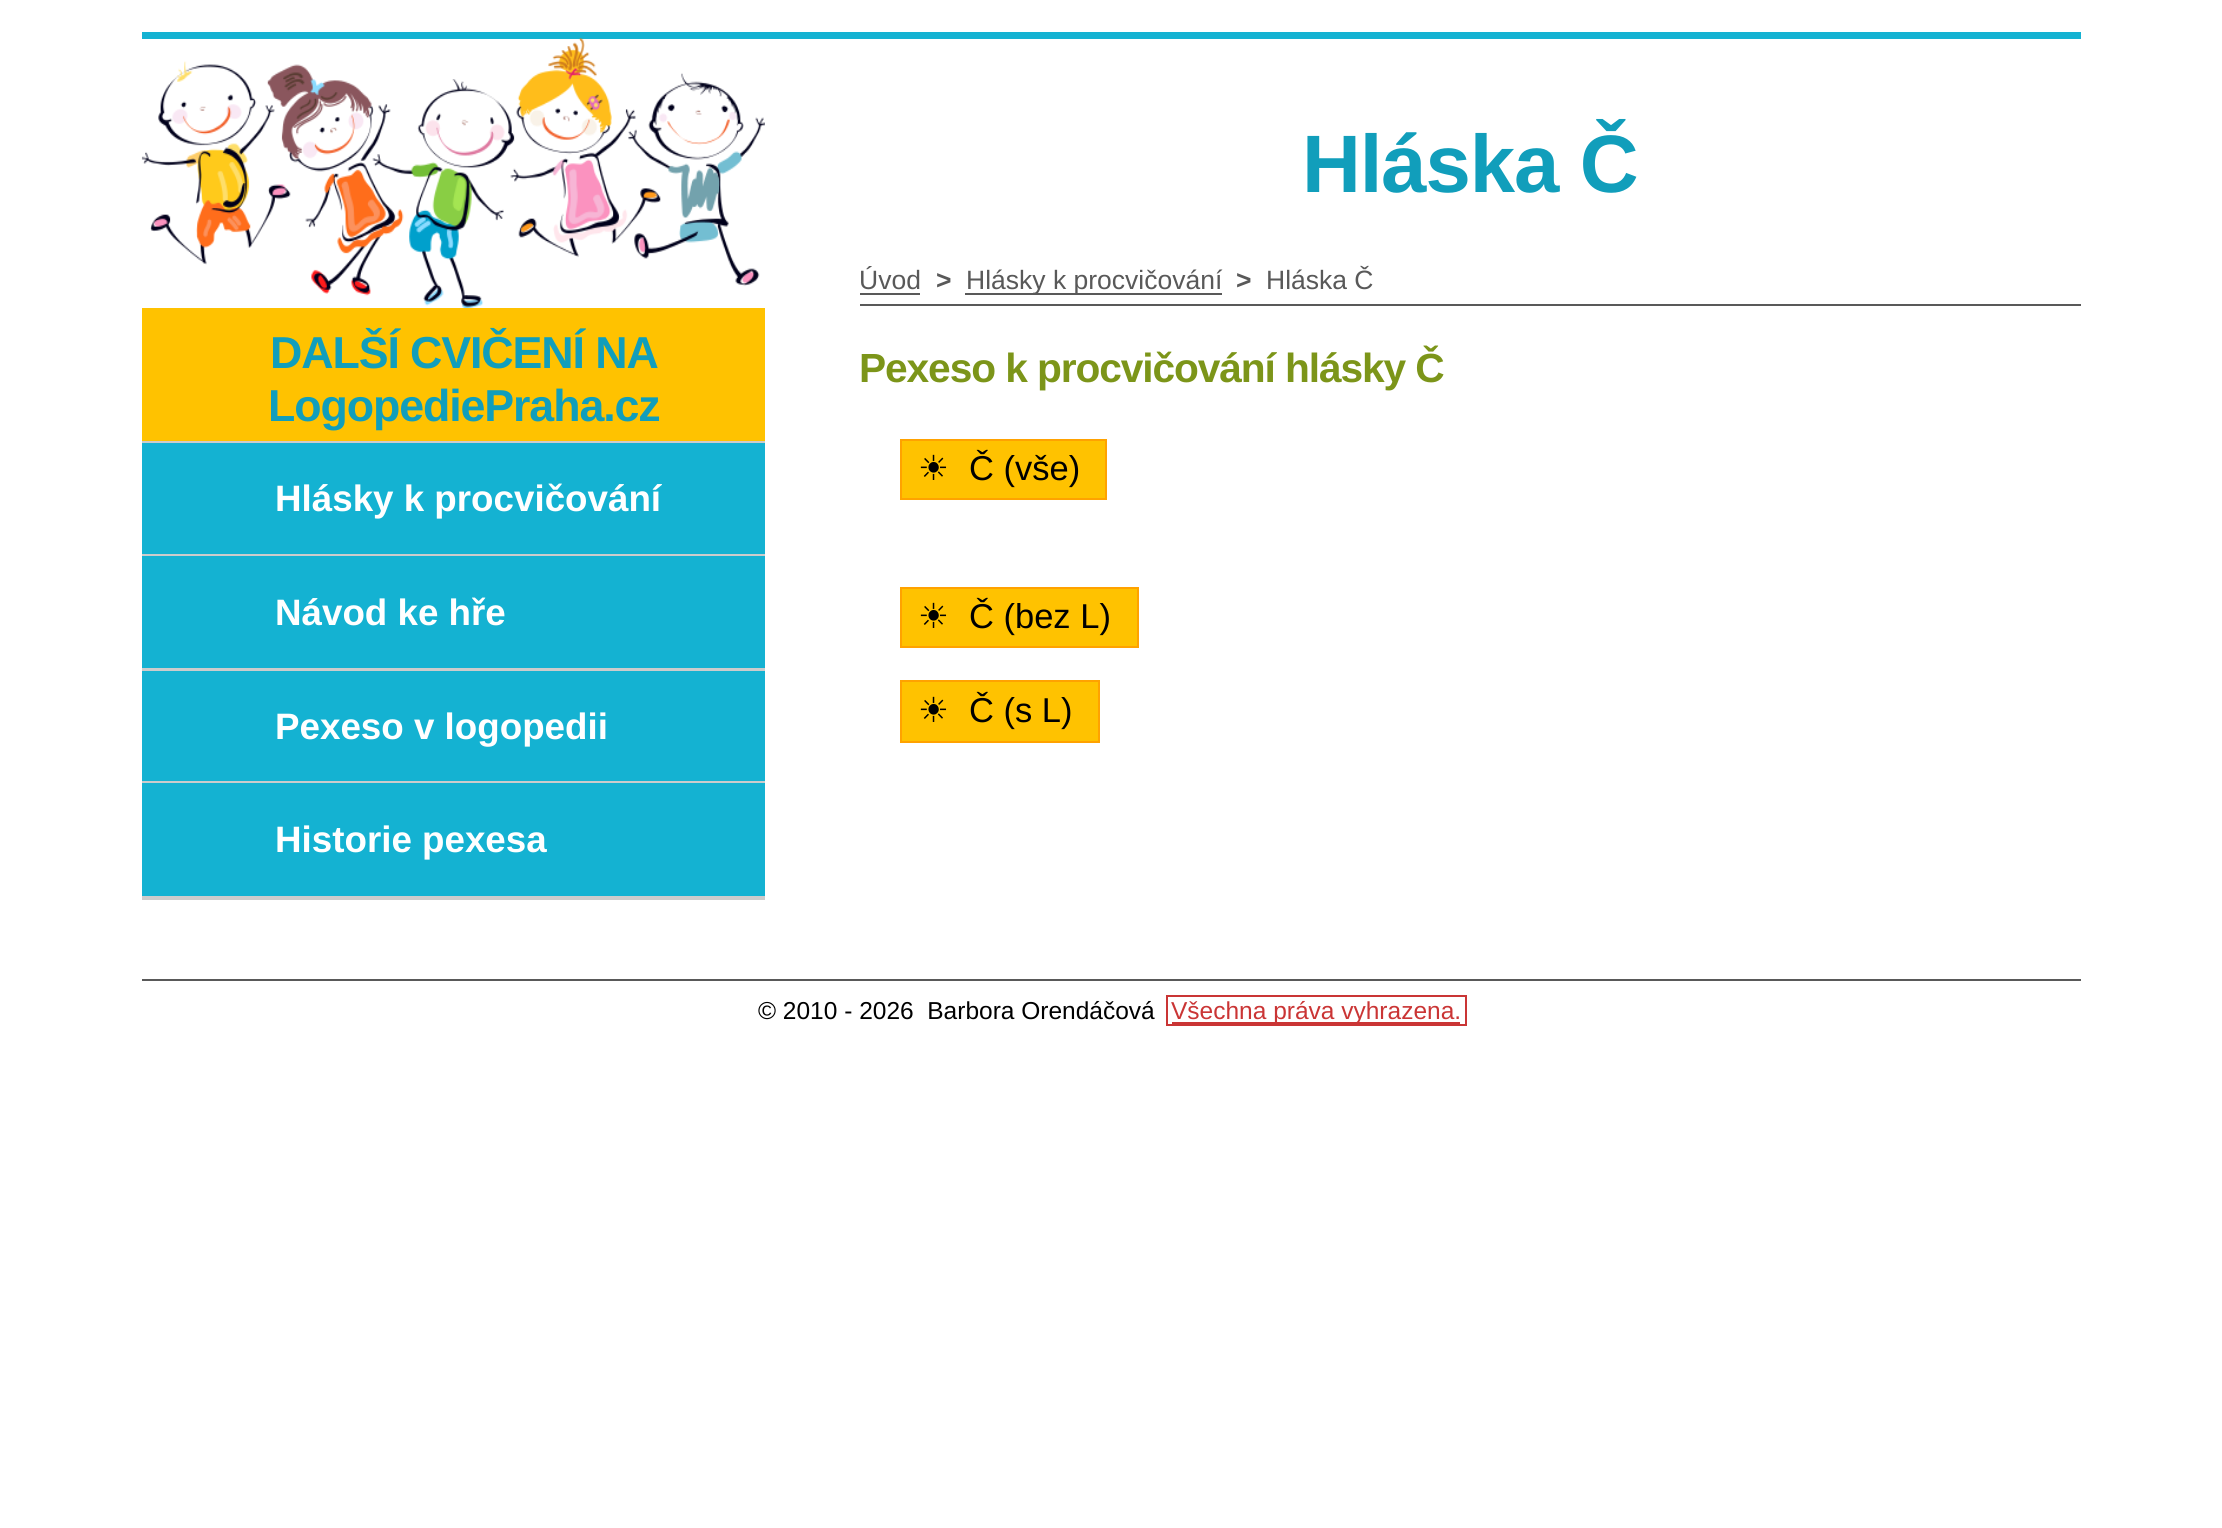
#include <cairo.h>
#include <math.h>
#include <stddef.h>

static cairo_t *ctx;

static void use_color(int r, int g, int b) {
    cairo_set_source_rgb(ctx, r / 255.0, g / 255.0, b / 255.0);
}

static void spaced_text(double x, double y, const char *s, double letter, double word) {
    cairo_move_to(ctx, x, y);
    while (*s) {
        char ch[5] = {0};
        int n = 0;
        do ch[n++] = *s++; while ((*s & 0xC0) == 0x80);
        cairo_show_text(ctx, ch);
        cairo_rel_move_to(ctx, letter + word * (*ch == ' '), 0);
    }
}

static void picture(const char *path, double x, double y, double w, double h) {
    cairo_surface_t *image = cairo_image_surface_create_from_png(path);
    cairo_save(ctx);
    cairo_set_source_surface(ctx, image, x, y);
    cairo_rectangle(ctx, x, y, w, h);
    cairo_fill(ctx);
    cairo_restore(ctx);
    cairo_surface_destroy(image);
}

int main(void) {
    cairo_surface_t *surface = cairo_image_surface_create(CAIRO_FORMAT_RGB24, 2222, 1528);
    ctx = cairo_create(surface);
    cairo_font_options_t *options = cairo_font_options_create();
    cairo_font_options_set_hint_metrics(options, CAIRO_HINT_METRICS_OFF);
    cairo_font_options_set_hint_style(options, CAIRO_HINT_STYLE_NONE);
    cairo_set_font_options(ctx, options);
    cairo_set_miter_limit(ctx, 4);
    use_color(255, 255, 255);
    cairo_paint(ctx);
    use_color(20, 178, 210);
    cairo_rectangle(ctx, 142, 32, 1939, 7);
    cairo_fill(ctx);
    picture("img1.png", 141, 38, 624, 270);
    cairo_select_font_face(ctx, "Liberation Sans", CAIRO_FONT_SLANT_NORMAL, CAIRO_FONT_WEIGHT_BOLD);
    cairo_set_font_size(ctx, 81.5);
    use_color(17, 158, 187);
    spaced_text(1302, 192, "Hláska Č", -1.1, 0);
    cairo_select_font_face(ctx, "Liberation Sans", CAIRO_FONT_SLANT_NORMAL, CAIRO_FONT_WEIGHT_NORMAL);
    cairo_set_font_size(ctx, 26.5);
    use_color(89, 89, 89);
    cairo_move_to(ctx, 859, 289);
    cairo_show_text(ctx, "Úvod");
    cairo_rectangle(ctx, 860, 293, 60, 2);
    cairo_fill(ctx);
    cairo_select_font_face(ctx, "Liberation Sans", CAIRO_FONT_SLANT_NORMAL, CAIRO_FONT_WEIGHT_BOLD);
    cairo_move_to(ctx, 936, 289);
    cairo_show_text(ctx, ">");
    cairo_rectangle(ctx, 965, 293, 257, 2);
    cairo_fill(ctx);
    cairo_select_font_face(ctx, "Liberation Sans", CAIRO_FONT_SLANT_NORMAL, CAIRO_FONT_WEIGHT_NORMAL);
    cairo_move_to(ctx, 966, 289);
    cairo_show_text(ctx, "Hlásky k procvičování");
    cairo_select_font_face(ctx, "Liberation Sans", CAIRO_FONT_SLANT_NORMAL, CAIRO_FONT_WEIGHT_BOLD);
    cairo_move_to(ctx, 1236, 289);
    cairo_show_text(ctx, ">");
    cairo_select_font_face(ctx, "Liberation Sans", CAIRO_FONT_SLANT_NORMAL, CAIRO_FONT_WEIGHT_NORMAL);
    cairo_move_to(ctx, 1266, 289);
    cairo_show_text(ctx, "Hláska Č");
    cairo_rectangle(ctx, 860, 304, 1221, 2);
    cairo_fill(ctx);
    cairo_select_font_face(ctx, "Liberation Sans", CAIRO_FONT_SLANT_NORMAL, CAIRO_FONT_WEIGHT_BOLD);
    cairo_set_font_size(ctx, 40.7);
    use_color(124, 149, 25);
    spaced_text(859, 382, "Pexeso k procvičování hlásky Č", -1.1, 0);
    use_color(255, 194, 0);
    cairo_rectangle(ctx, 901, 440, 205, 59);
    cairo_fill_preserve(ctx);
    use_color(255, 162, 0);
    cairo_stroke(ctx);
    cairo_select_font_face(ctx, "DejaVu Sans", CAIRO_FONT_SLANT_NORMAL, CAIRO_FONT_WEIGHT_NORMAL);
    cairo_set_font_size(ctx, 34.5);
    use_color(0, 0, 0);
    cairo_move_to(ctx, 918, 480);
    cairo_show_text(ctx, "☀");
    cairo_select_font_face(ctx, "Liberation Sans", CAIRO_FONT_SLANT_NORMAL, CAIRO_FONT_WEIGHT_NORMAL);
    cairo_move_to(ctx, 969, 480);
    cairo_show_text(ctx, "Č (vše)");
    use_color(255, 194, 0);
    cairo_rectangle(ctx, 901, 588, 237, 59);
    cairo_fill_preserve(ctx);
    use_color(255, 162, 0);
    cairo_stroke(ctx);
    cairo_select_font_face(ctx, "DejaVu Sans", CAIRO_FONT_SLANT_NORMAL, CAIRO_FONT_WEIGHT_NORMAL);
    use_color(0, 0, 0);
    cairo_move_to(ctx, 918, 628);
    cairo_show_text(ctx, "☀");
    cairo_select_font_face(ctx, "Liberation Sans", CAIRO_FONT_SLANT_NORMAL, CAIRO_FONT_WEIGHT_NORMAL);
    cairo_move_to(ctx, 969, 628);
    cairo_show_text(ctx, "Č (bez L)");
    use_color(255, 194, 0);
    cairo_rectangle(ctx, 901, 681, 198, 61);
    cairo_fill_preserve(ctx);
    use_color(255, 162, 0);
    cairo_stroke(ctx);
    cairo_select_font_face(ctx, "DejaVu Sans", CAIRO_FONT_SLANT_NORMAL, CAIRO_FONT_WEIGHT_NORMAL);
    use_color(0, 0, 0);
    cairo_move_to(ctx, 918, 722);
    cairo_show_text(ctx, "☀");
    cairo_select_font_face(ctx, "Liberation Sans", CAIRO_FONT_SLANT_NORMAL, CAIRO_FONT_WEIGHT_NORMAL);
    cairo_move_to(ctx, 969, 722);
    cairo_show_text(ctx, "Č (s L)");
    use_color(204, 204, 204);
    cairo_rectangle(ctx, 142, 441, 623, 459);
    cairo_fill(ctx);
    use_color(255, 194, 0);
    cairo_rectangle(ctx, 142, 308, 623, 133);
    cairo_fill(ctx);
    cairo_select_font_face(ctx, "Liberation Sans", CAIRO_FONT_SLANT_NORMAL, CAIRO_FONT_WEIGHT_BOLD);
    cairo_set_font_size(ctx, 44.75);
    use_color(17, 158, 187);
    spaced_text(270, 368, "DALŠÍ CVIČENÍ NA", -1.1, 0);
    spaced_text(268, 421, "LogopediePraha.cz", -1.1, 0);
    use_color(20, 178, 210);
    cairo_rectangle(ctx, 142, 443, 623, 111);
    cairo_fill(ctx);
    cairo_set_font_size(ctx, 36.75);
    use_color(255, 255, 255);
    cairo_move_to(ctx, 275, 511);
    cairo_show_text(ctx, "Hlásky k procvičování");
    use_color(20, 178, 210);
    cairo_rectangle(ctx, 142, 556, 623, 112);
    cairo_fill(ctx);
    use_color(255, 255, 255);
    cairo_move_to(ctx, 275, 625);
    cairo_show_text(ctx, "Návod ke hře");
    use_color(20, 178, 210);
    cairo_rectangle(ctx, 142, 671, 623, 110);
    cairo_fill(ctx);
    use_color(255, 255, 255);
    cairo_move_to(ctx, 275, 739);
    cairo_show_text(ctx, "Pexeso v logopedii");
    use_color(20, 178, 210);
    cairo_rectangle(ctx, 142, 783, 623, 113);
    cairo_fill(ctx);
    use_color(255, 255, 255);
    cairo_move_to(ctx, 275, 852);
    cairo_show_text(ctx, "Historie pexesa");
    use_color(89, 89, 89);
    cairo_rectangle(ctx, 142, 979, 1939, 2);
    cairo_fill(ctx);
    cairo_select_font_face(ctx, "Liberation Sans", CAIRO_FONT_SLANT_NORMAL, CAIRO_FONT_WEIGHT_NORMAL);
    cairo_set_font_size(ctx, 24.5);
    use_color(0, 0, 0);
    cairo_move_to(ctx, 758, 1019);
    cairo_show_text(ctx, "© 2010 - 2026  Barbora Orendáčová");
    use_color(202, 53, 53);
    cairo_rectangle(ctx, 1172, 1022, 288, 2);
    cairo_fill(ctx);
    cairo_move_to(ctx, 1171, 1019);
    cairo_show_text(ctx, "Všechna práva vyhrazena.");
    cairo_rectangle(ctx, 1167, 996, 299, 29);
    cairo_stroke(ctx);
    cairo_surface_write_to_png(surface, "result.png");
    cairo_font_options_destroy(options);
    cairo_destroy(ctx);
    cairo_surface_destroy(surface);
    return 0;
}
